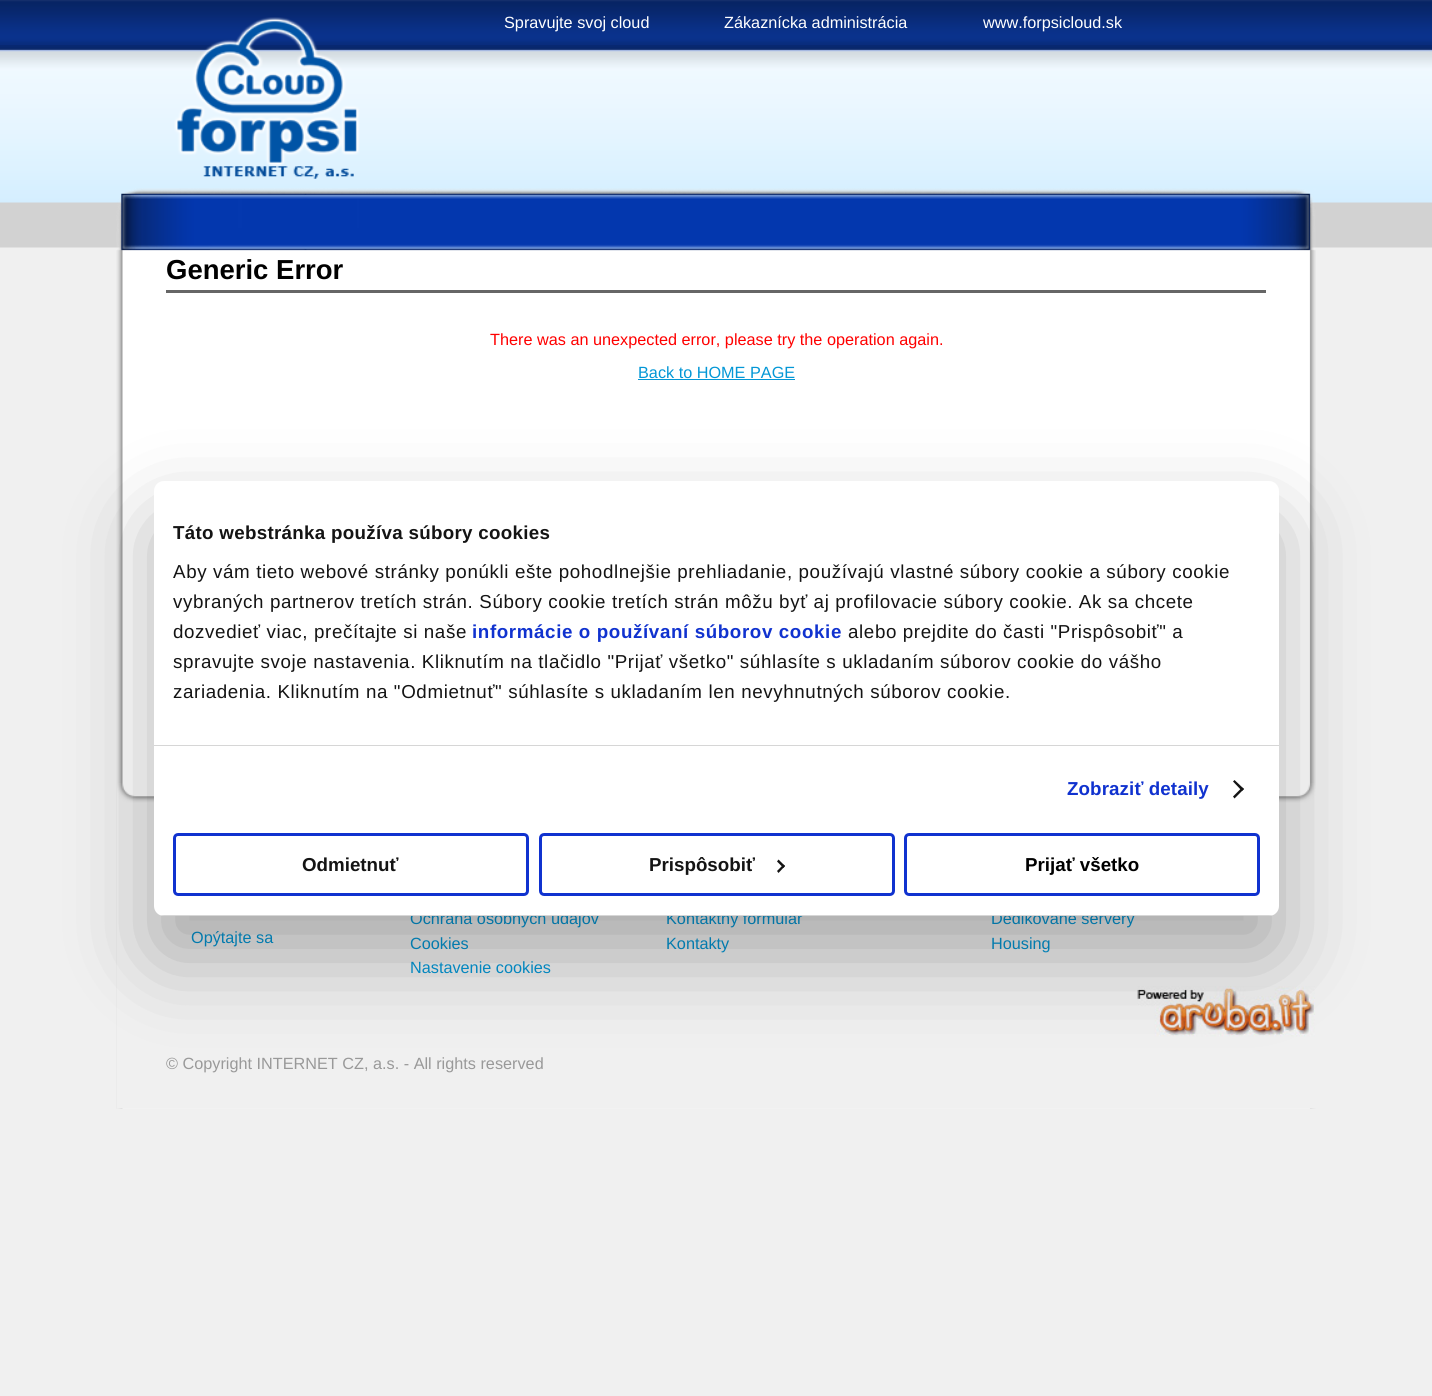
#include <cairo.h>
#include <math.h>
#include <stddef.h>

static cairo_t *ctx;

static void use_color(int r, int g, int b) {
    cairo_set_source_rgb(ctx, r / 255.0, g / 255.0, b / 255.0);
}

static void spaced_text(double x, double y, const char *s, double letter, double word) {
    cairo_move_to(ctx, x, y);
    while (*s) {
        char ch[5] = {0};
        int n = 0;
        do ch[n++] = *s++; while ((*s & 0xC0) == 0x80);
        cairo_show_text(ctx, ch);
        cairo_rel_move_to(ctx, letter + word * (*ch == ' '), 0);
    }
}

static void round_rect(double x, double y, double w, double h, double r) {
    cairo_new_sub_path(ctx);
    cairo_arc(ctx, x + w - r, y + h - r, r, 0, M_PI / 2);
    cairo_arc(ctx, x + r, y + h - r, r, M_PI / 2, M_PI);
    cairo_arc(ctx, x + r, y + r, r, M_PI, 1.5 * M_PI);
    cairo_arc(ctx, x + w - r, y + r, r, 1.5 * M_PI, 2 * M_PI);
    cairo_close_path(ctx);
}

static void shadow(double x, double y, double w, double h, double r, double blur, double alpha) {
    cairo_push_group_with_content(ctx, CAIRO_CONTENT_ALPHA);
    cairo_set_operator(ctx, CAIRO_OPERATOR_SOURCE);
    for (int i = 15; i >= -15 && fmin(w, h) + blur * i / 3 > 0; i -= 2) {
        double e = blur * i / 6;
        cairo_set_source_rgba(ctx, 0, 0, 0, alpha * erfc((i - 1) / 8.5) / 2);
        round_rect(x - e, y - e, w + 2 * e, h + 2 * e, fmax(0, fmin(r + e + blur * .6, fmin(w, h) / 2 + e)));
        cairo_fill(ctx);
    }
    cairo_pattern_t *soft = cairo_pop_group(ctx);
    cairo_mask(ctx, soft);
    cairo_pattern_destroy(soft);
}

static void picture(const char *path, double x, double y, double w, double h) {
    cairo_surface_t *image = cairo_image_surface_create_from_png(path);
    cairo_save(ctx);
    cairo_set_source_surface(ctx, image, x, y);
    cairo_rectangle(ctx, x, y, w, h);
    cairo_fill(ctx);
    cairo_restore(ctx);
    cairo_surface_destroy(image);
}

int main(void) {
    cairo_surface_t *surface = cairo_image_surface_create(CAIRO_FORMAT_RGB24, 1432, 1396);
    ctx = cairo_create(surface);
    cairo_font_options_t *options = cairo_font_options_create();
    cairo_font_options_set_hint_metrics(options, CAIRO_HINT_METRICS_OFF);
    cairo_font_options_set_hint_style(options, CAIRO_HINT_STYLE_NONE);
    cairo_set_font_options(ctx, options);
    cairo_set_miter_limit(ctx, 4);
    use_color(240, 240, 240);
    cairo_paint(ctx);
    picture("img1.png", 0, 0, 1432, 248);
    picture("img2.png", 116, 188, 1200, 921);
    picture("img3.png", 117, 783, 1199, 326);
    picture("img4.png", 174, 17, 186, 162);
    cairo_select_font_face(ctx, "Liberation Sans", CAIRO_FONT_SLANT_NORMAL, CAIRO_FONT_WEIGHT_NORMAL);
    cairo_set_font_size(ctx, 16.25);
    use_color(255, 255, 255);
    cairo_move_to(ctx, 504, 28);
    cairo_show_text(ctx, "Spravujte svoj cloud");
    cairo_move_to(ctx, 724, 28);
    cairo_show_text(ctx, "Zákaznícka administrácia");
    cairo_move_to(ctx, 983, 28);
    cairo_show_text(ctx, "www.forpsicloud.sk");
    use_color(102, 102, 102);
    cairo_rectangle(ctx, 166, 290, 1100, 3);
    cairo_fill(ctx);
    cairo_select_font_face(ctx, "Liberation Sans", CAIRO_FONT_SLANT_NORMAL, CAIRO_FONT_WEIGHT_BOLD);
    cairo_set_font_size(ctx, 27.5);
    use_color(0, 0, 0);
    cairo_move_to(ctx, 166, 279);
    cairo_show_text(ctx, "Generic Error");
    cairo_select_font_face(ctx, "Liberation Sans", CAIRO_FONT_SLANT_NORMAL, CAIRO_FONT_WEIGHT_NORMAL);
    cairo_set_font_size(ctx, 16.25);
    use_color(255, 0, 0);
    cairo_move_to(ctx, 490, 345);
    cairo_show_text(ctx, "There was an unexpected error, please try the operation again.");
    use_color(3, 151, 214);
    cairo_move_to(ctx, 638, 378);
    cairo_show_text(ctx, "Back to HOME PAGE");
    cairo_rectangle(ctx, 638, 379, 157, 1);
    cairo_fill(ctx);
    cairo_move_to(ctx, 410, 924);
    cairo_show_text(ctx, "Ochrana osobných údajov");
    cairo_move_to(ctx, 666, 924);
    cairo_show_text(ctx, "Kontaktný formulár");
    cairo_move_to(ctx, 991, 924);
    cairo_show_text(ctx, "Dedikované servery");
    cairo_move_to(ctx, 191, 943);
    cairo_show_text(ctx, "Opýtajte sa");
    cairo_move_to(ctx, 410, 949);
    cairo_show_text(ctx, "Cookies");
    cairo_move_to(ctx, 666, 949);
    cairo_show_text(ctx, "Kontakty");
    cairo_move_to(ctx, 991, 949);
    cairo_show_text(ctx, "Housing");
    cairo_move_to(ctx, 410, 973);
    cairo_show_text(ctx, "Nastavenie cookies");
    picture("img5.png", 1137, 986, 178, 51);
    use_color(153, 153, 153);
    cairo_move_to(ctx, 166, 1069);
    cairo_show_text(ctx, "© Copyright INTERNET CZ, a.s. - All rights reserved");
    use_color(0, 0, 0);
    shadow(154, 521, 1125, 435, 10, 42.5, 0.3);
    use_color(255, 255, 255);
    round_rect(154, 481, 1125, 435, 10);
    cairo_fill(ctx);
    use_color(214, 214, 214);
    cairo_rectangle(ctx, 154, 745, 1125, 1);
    cairo_fill(ctx);
    cairo_select_font_face(ctx, "Liberation Sans", CAIRO_FONT_SLANT_NORMAL, CAIRO_FONT_WEIGHT_BOLD);
    cairo_set_font_size(ctx, 18.75);
    use_color(20, 20, 20);
    spaced_text(173, 539, "Táto webstránka používa súbory cookies", 0.3, 0);
    cairo_select_font_face(ctx, "Liberation Sans", CAIRO_FONT_SLANT_NORMAL, CAIRO_FONT_WEIGHT_NORMAL);
    spaced_text(173, 578, "Aby vám tieto webové stránky ponúkli ešte pohodlnejšie prehliadanie, používajú vlastné súbory cookie a súbory cookie", 0.62, 0);
    spaced_text(173, 608, "vybraných partnerov tretích strán. Súbory cookie tretích strán môžu byť aj profilovacie súbory cookie. Ak sa chcete", 0.62, 0);
    spaced_text(173, 638, "dozvedieť viac, prečítajte si naše", 0.62, 0);
    cairo_select_font_face(ctx, "Liberation Sans", CAIRO_FONT_SLANT_NORMAL, CAIRO_FONT_WEIGHT_BOLD);
    use_color(16, 50, 207);
    spaced_text(472, 638, "informácie o používaní súborov cookie", 0.62, 0);
    cairo_select_font_face(ctx, "Liberation Sans", CAIRO_FONT_SLANT_NORMAL, CAIRO_FONT_WEIGHT_NORMAL);
    use_color(20, 20, 20);
    spaced_text(848, 638, "alebo prejdite do časti \"Prispôsobiť\" a", 0.62, 0);
    spaced_text(173, 668, "spravujte svoje nastavenia. Kliknutím na tlačidlo \"Prijať všetko\" súhlasíte s ukladaním súborov cookie do vášho", 0.62, 0);
    spaced_text(173, 698, "zariadenia. Kliknutím na \"Odmietnuť\" súhlasíte s ukladaním len nevyhnutných súborov cookie.", 0.62, 0);
    cairo_select_font_face(ctx, "Liberation Sans", CAIRO_FONT_SLANT_NORMAL, CAIRO_FONT_WEIGHT_BOLD);
    use_color(16, 50, 207);
    spaced_text(1067, 795, "Zobraziť detaily", 0.1, 0);
    use_color(20, 20, 20);
    cairo_new_path(ctx);
    cairo_move_to(ctx, 1234.5, 780);
    cairo_line_to(ctx, 1244, 789);
    cairo_line_to(ctx, 1242, 791);
    cairo_line_to(ctx, 1233, 781.5);
    cairo_close_path(ctx);
    cairo_fill(ctx);
    cairo_new_path(ctx);
    cairo_move_to(ctx, 1242, 787.5);
    cairo_line_to(ctx, 1244, 789);
    cairo_line_to(ctx, 1234.5, 798.5);
    cairo_line_to(ctx, 1233, 796.5);
    cairo_close_path(ctx);
    cairo_fill(ctx);
    cairo_save(ctx);
    round_rect(154, 481, 1125, 435, 10);
    cairo_clip(ctx);
    use_color(214, 214, 214);
    cairo_rectangle(ctx, 154, 915, 1125, 1);
    cairo_fill(ctx);
    cairo_restore(ctx);
    round_rect(174.5, 834.5, 353, 60, 3.5);
    use_color(16, 50, 207);
    cairo_set_line_width(ctx, 3);
    cairo_stroke(ctx);
    use_color(20, 20, 20);
    cairo_move_to(ctx, 302, 871);
    cairo_show_text(ctx, "Odmietnuť");
    round_rect(540.5, 834.5, 353, 60, 3.5);
    use_color(16, 50, 207);
    cairo_stroke(ctx);
    use_color(20, 20, 20);
    cairo_move_to(ctx, 649, 871);
    cairo_show_text(ctx, "Prispôsobiť");
    cairo_new_path(ctx);
    cairo_move_to(ctx, 778.5, 859.5);
    cairo_line_to(ctx, 785, 866);
    cairo_line_to(ctx, 783.5, 868);
    cairo_line_to(ctx, 777, 861.5);
    cairo_close_path(ctx);
    cairo_fill(ctx);
    cairo_new_path(ctx);
    cairo_move_to(ctx, 783.5, 864.5);
    cairo_line_to(ctx, 785, 866);
    cairo_line_to(ctx, 778.5, 873);
    cairo_line_to(ctx, 777, 871);
    cairo_close_path(ctx);
    cairo_fill(ctx);
    round_rect(905.5, 834.5, 353, 60, 3.5);
    use_color(16, 50, 207);
    cairo_stroke(ctx);
    use_color(0, 0, 0);
    cairo_move_to(ctx, 1025, 871);
    cairo_show_text(ctx, "Prijať všetko");
    cairo_surface_write_to_png(surface, "result.png");
    cairo_font_options_destroy(options);
    cairo_destroy(ctx);
    cairo_surface_destroy(surface);
    return 0;
}
